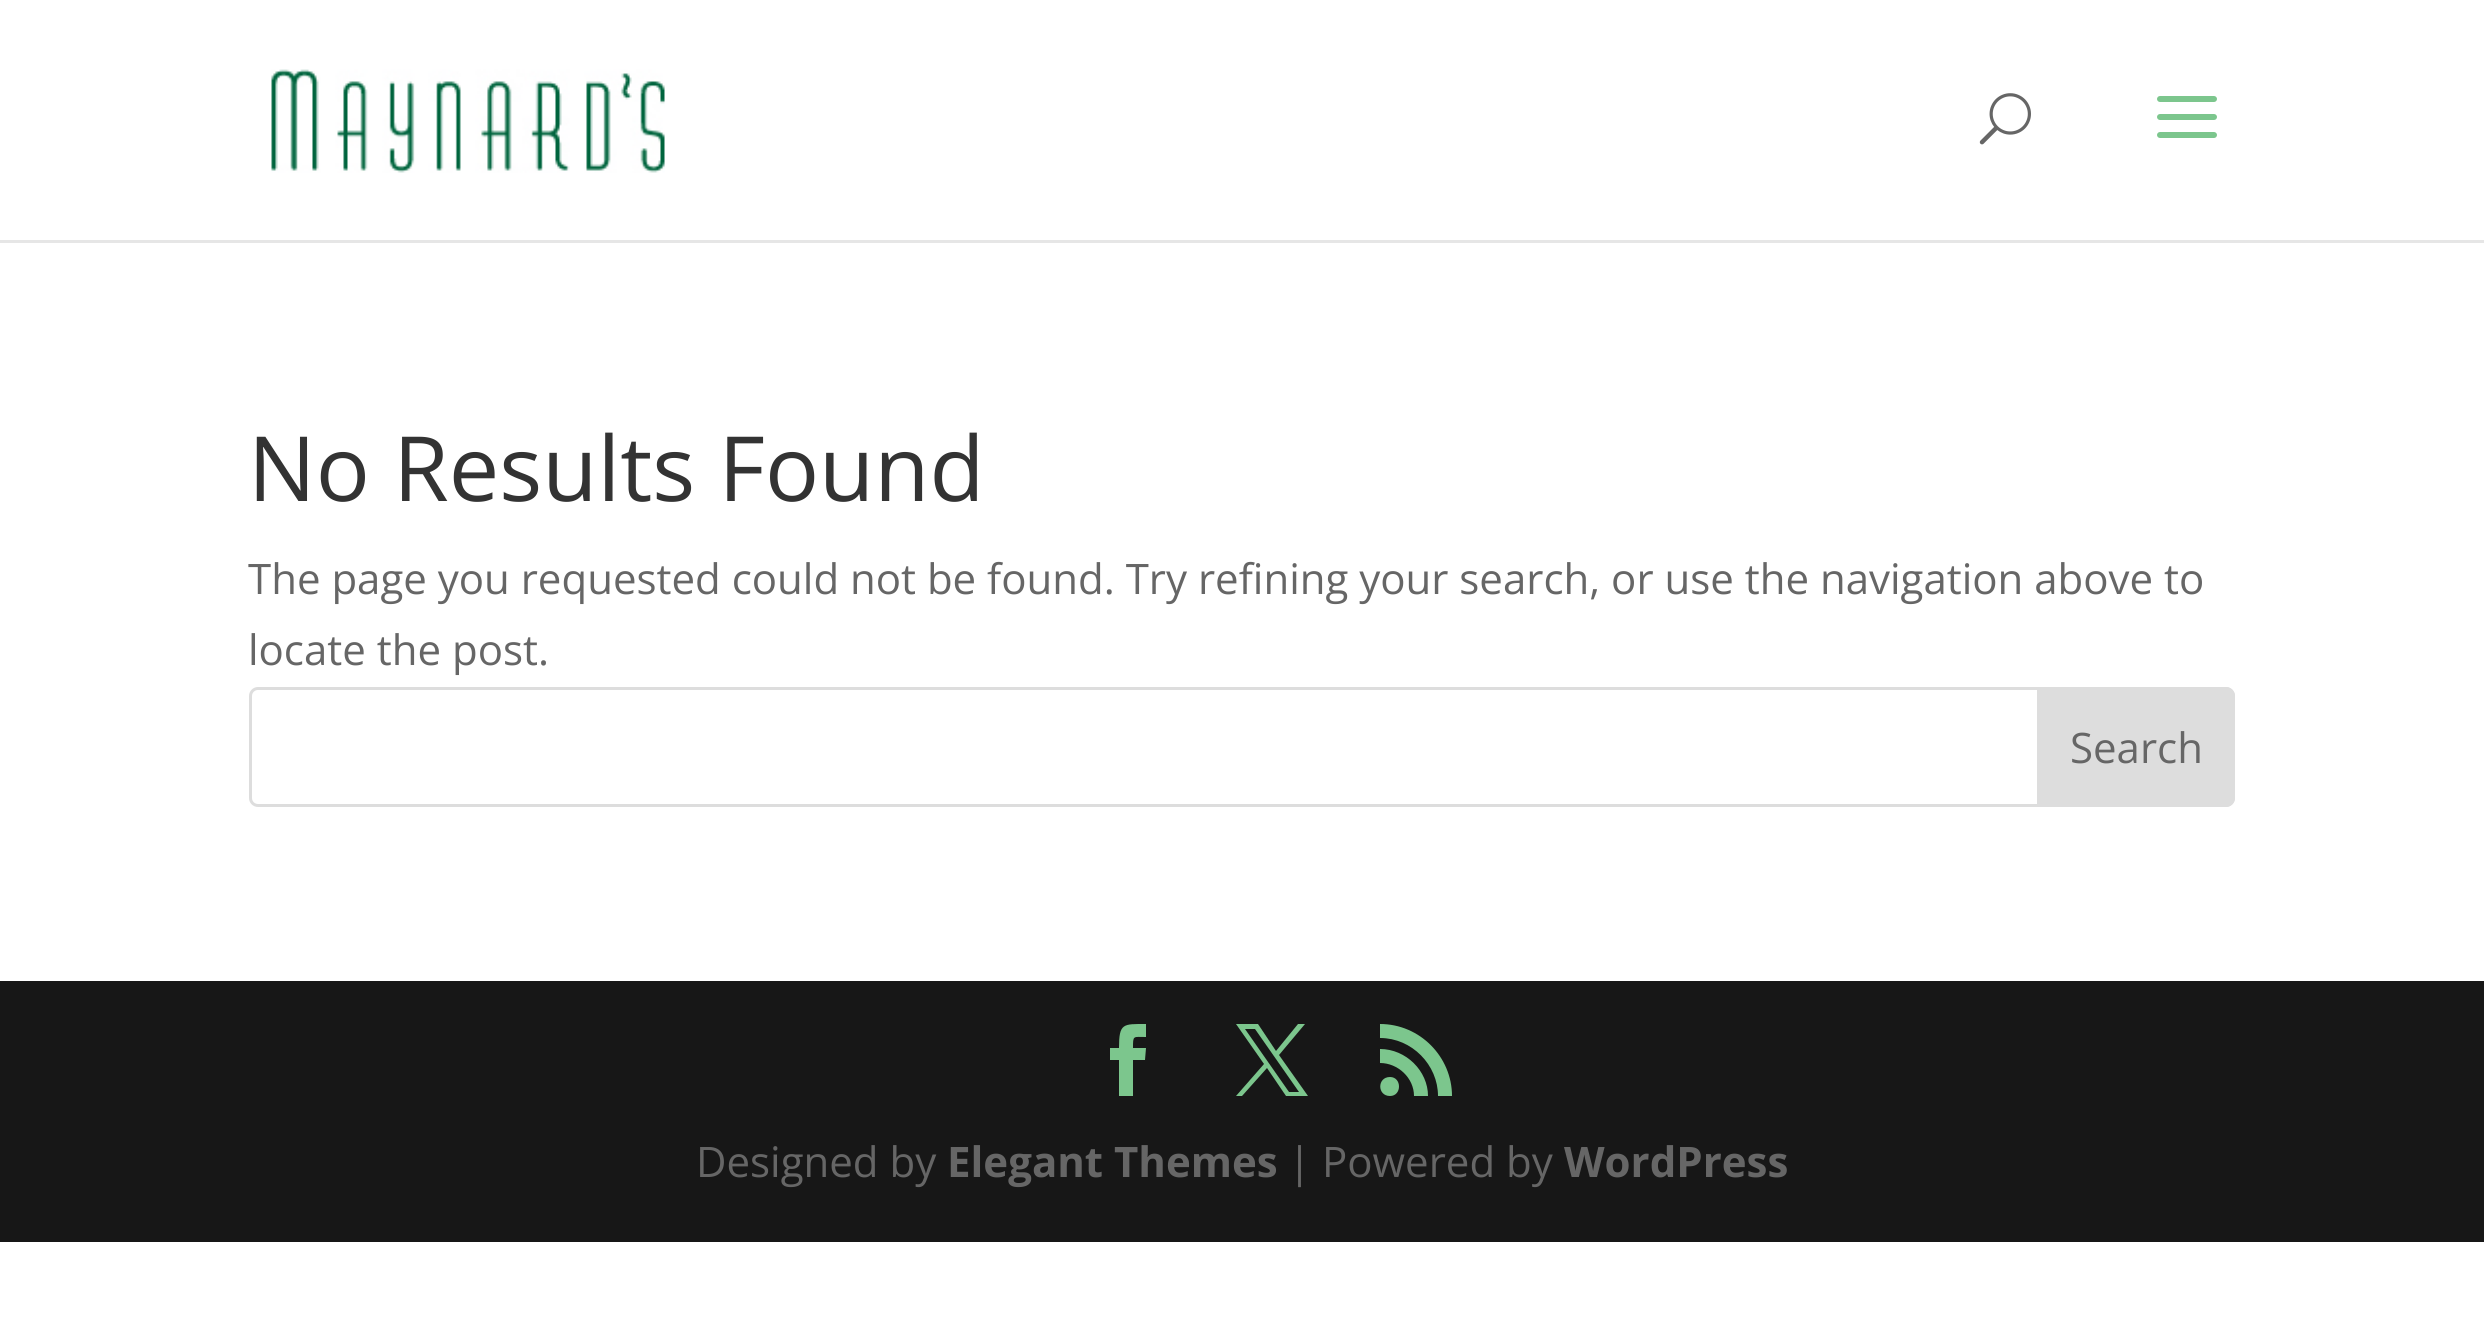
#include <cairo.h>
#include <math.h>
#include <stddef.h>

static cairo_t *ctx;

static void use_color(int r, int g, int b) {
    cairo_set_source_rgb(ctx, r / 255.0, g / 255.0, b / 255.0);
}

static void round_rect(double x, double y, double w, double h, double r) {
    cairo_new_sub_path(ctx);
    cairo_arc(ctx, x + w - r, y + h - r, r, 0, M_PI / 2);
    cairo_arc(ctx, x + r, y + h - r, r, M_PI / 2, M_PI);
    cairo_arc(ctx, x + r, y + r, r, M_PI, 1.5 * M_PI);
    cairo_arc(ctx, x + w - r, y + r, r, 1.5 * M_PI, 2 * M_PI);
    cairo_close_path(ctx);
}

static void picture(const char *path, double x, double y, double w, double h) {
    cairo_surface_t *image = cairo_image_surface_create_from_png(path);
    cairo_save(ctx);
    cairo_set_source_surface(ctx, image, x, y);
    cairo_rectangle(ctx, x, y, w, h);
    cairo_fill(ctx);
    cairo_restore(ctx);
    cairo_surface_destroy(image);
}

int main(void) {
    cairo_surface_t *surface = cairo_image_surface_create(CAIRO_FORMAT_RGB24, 2484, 1333);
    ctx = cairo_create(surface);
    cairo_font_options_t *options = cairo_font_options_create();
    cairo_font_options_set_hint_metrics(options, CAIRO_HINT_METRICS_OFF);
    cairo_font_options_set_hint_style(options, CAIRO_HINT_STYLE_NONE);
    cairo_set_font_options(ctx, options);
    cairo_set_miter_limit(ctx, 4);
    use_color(255, 255, 255);
    cairo_paint(ctx);
    use_color(230, 230, 230);
    cairo_rectangle(ctx, 0, 240, 2484, 3);
    cairo_fill(ctx);
    picture("img1.png", 271, 69, 394, 104);
    picture("img2.png", 1979, 93, 52, 52);
    picture("img3.png", 2157, 96, 60, 42);
    cairo_select_font_face(ctx, "Open Sans", CAIRO_FONT_SLANT_NORMAL, CAIRO_FONT_WEIGHT_NORMAL);
    cairo_set_font_size(ctx, 90);
    use_color(51, 51, 51);
    cairo_move_to(ctx, 248, 501);
    cairo_show_text(ctx, "No Results Found");
    cairo_set_font_size(ctx, 42);
    use_color(102, 102, 102);
    cairo_move_to(ctx, 248, 594);
    cairo_show_text(ctx, "The page you requested could not be found. Try refining your search, or use the navigation above to");
    cairo_move_to(ctx, 248, 665);
    cairo_show_text(ctx, "locate the post.");
    round_rect(250.5, 688.5, 1983, 117, 7.5);
    use_color(221, 221, 221);
    cairo_set_line_width(ctx, 3);
    cairo_stroke(ctx);
    cairo_new_path(ctx);
    cairo_move_to(ctx, 2038.5, 688.5);
    cairo_line_to(ctx, 2226, 688.5);
    cairo_curve_to(ctx, 2230, 688.5, 2233.5, 692, 2233.5, 696);
    cairo_line_to(ctx, 2233.5, 798);
    cairo_curve_to(ctx, 2233.5, 802, 2230, 805.5, 2226, 805.5);
    cairo_line_to(ctx, 2038.5, 805.5);
    cairo_close_path(ctx);
    cairo_fill_preserve(ctx);
    cairo_stroke(ctx);
    use_color(102, 102, 102);
    cairo_move_to(ctx, 2070, 763);
    cairo_show_text(ctx, "Search");
    use_color(23, 23, 23);
    cairo_rectangle(ctx, 0, 981, 2484, 261);
    cairo_fill(ctx);
    use_color(124, 198, 141);
    cairo_new_path(ctx);
    cairo_move_to(ctx, 1119, 1096);
    cairo_line_to(ctx, 1133, 1096);
    cairo_line_to(ctx, 1133, 1060);
    cairo_line_to(ctx, 1145, 1060);
    cairo_line_to(ctx, 1146, 1048);
    cairo_line_to(ctx, 1133, 1048);
    cairo_curve_to(ctx, 1133, 1035, 1133, 1037, 1146, 1037);
    cairo_line_to(ctx, 1146, 1024);
    cairo_curve_to(ctx, 1123, 1024, 1119, 1023, 1119, 1048);
    cairo_line_to(ctx, 1110, 1048);
    cairo_line_to(ctx, 1110, 1060);
    cairo_line_to(ctx, 1119, 1060);
    cairo_close_path(ctx);
    cairo_fill(ctx);
    cairo_new_path(ctx);
    cairo_move_to(ctx, 1236, 1024);
    cairo_line_to(ctx, 1264, 1064);
    cairo_line_to(ctx, 1236, 1096);
    cairo_line_to(ctx, 1242, 1096);
    cairo_line_to(ctx, 1267, 1068);
    cairo_line_to(ctx, 1286, 1096);
    cairo_line_to(ctx, 1308, 1096);
    cairo_line_to(ctx, 1279, 1055);
    cairo_line_to(ctx, 1305, 1024);
    cairo_line_to(ctx, 1298, 1024);
    cairo_line_to(ctx, 1276, 1051);
    cairo_line_to(ctx, 1258, 1024);
    cairo_close_path(ctx);
    cairo_move_to(ctx, 1245, 1029);
    cairo_line_to(ctx, 1255, 1029);
    cairo_line_to(ctx, 1299, 1092);
    cairo_line_to(ctx, 1289, 1092);
    cairo_close_path(ctx);
    cairo_fill(ctx);
    cairo_new_path(ctx);
    cairo_move_to(ctx, 1380, 1024);
    cairo_line_to(ctx, 1380, 1038);
    cairo_curve_to(ctx, 1412, 1038, 1438, 1065, 1438, 1096);
    cairo_line_to(ctx, 1452, 1096);
    cairo_curve_to(ctx, 1452, 1057, 1420, 1024, 1380, 1024);
    cairo_close_path(ctx);
    cairo_move_to(ctx, 1414, 1096);
    cairo_line_to(ctx, 1428, 1096);
    cairo_curve_to(ctx, 1428, 1071, 1406, 1049, 1380, 1049);
    cairo_line_to(ctx, 1380, 1063);
    cairo_curve_to(ctx, 1398, 1063, 1414, 1078, 1414, 1096);
    cairo_close_path(ctx);
    cairo_move_to(ctx, 1390, 1096);
    cairo_curve_to(ctx, 1402, 1096, 1402, 1077, 1390, 1077);
    cairo_curve_to(ctx, 1377, 1077, 1377, 1096, 1390, 1096);
    cairo_close_path(ctx);
    cairo_fill(ctx);
    use_color(102, 102, 102);
    cairo_move_to(ctx, 696, 1177);
    cairo_show_text(ctx, "Designed by");
    cairo_select_font_face(ctx, "Open Sans", CAIRO_FONT_SLANT_NORMAL, CAIRO_FONT_WEIGHT_BOLD);
    cairo_move_to(ctx, 947, 1177);
    cairo_show_text(ctx, "Elegant Themes");
    cairo_select_font_face(ctx, "Open Sans", CAIRO_FONT_SLANT_NORMAL, CAIRO_FONT_WEIGHT_NORMAL);
    cairo_move_to(ctx, 1288, 1177);
    cairo_show_text(ctx, "| Powered by");
    cairo_select_font_face(ctx, "Open Sans", CAIRO_FONT_SLANT_NORMAL, CAIRO_FONT_WEIGHT_BOLD);
    cairo_move_to(ctx, 1564, 1177);
    cairo_show_text(ctx, "WordPress");
    cairo_surface_write_to_png(surface, "result.png");
    cairo_font_options_destroy(options);
    cairo_destroy(ctx);
    cairo_surface_destroy(surface);
    return 0;
}
